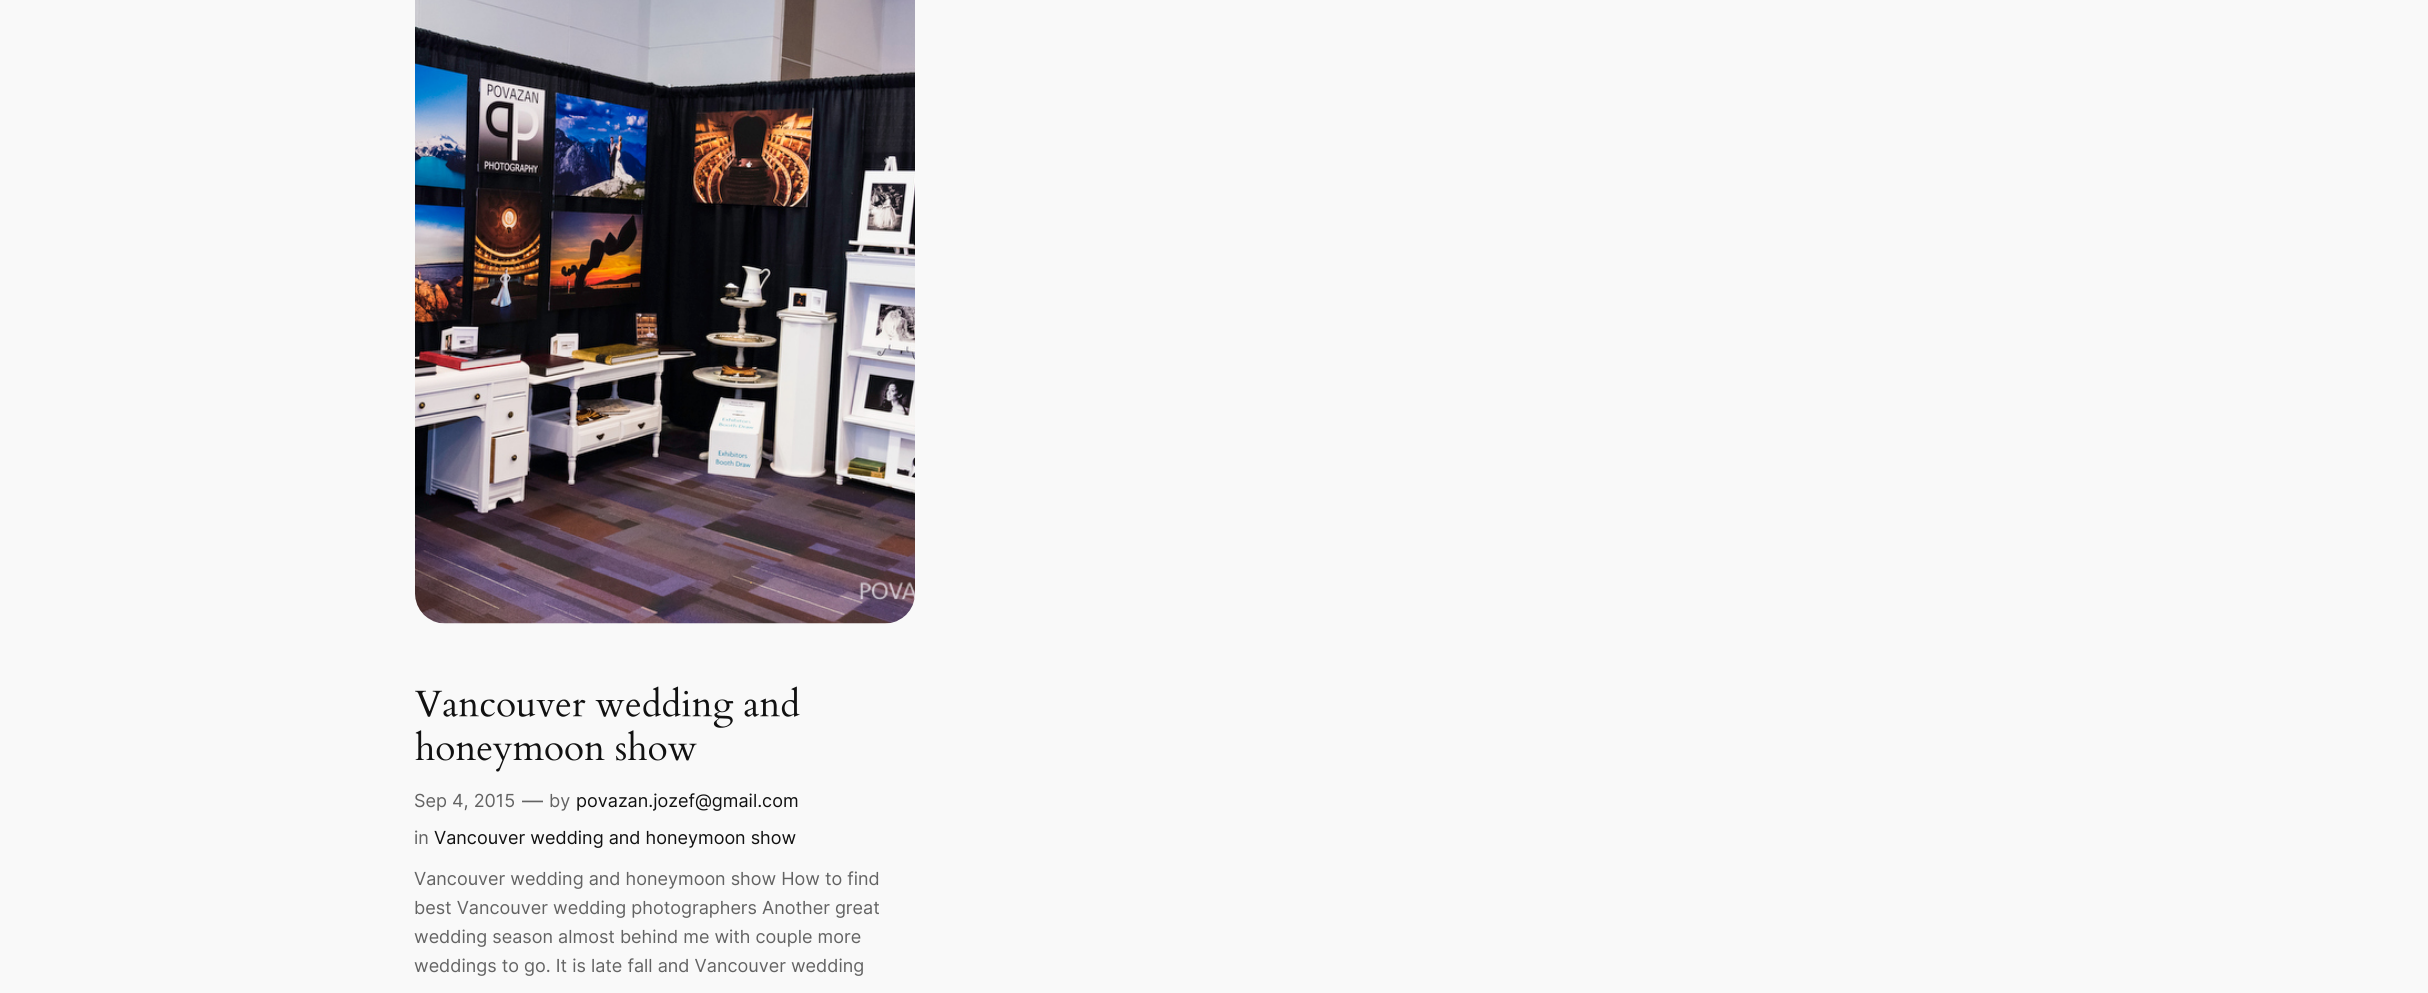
#include <cairo.h>
#include <math.h>
#include <stddef.h>

static cairo_t *ctx;

static void use_color(int r, int g, int b) {
    cairo_set_source_rgb(ctx, r / 255.0, g / 255.0, b / 255.0);
}

static void picture(const char *path, double x, double y, double w, double h) {
    cairo_surface_t *image = cairo_image_surface_create_from_png(path);
    cairo_save(ctx);
    cairo_set_source_surface(ctx, image, x, y);
    cairo_rectangle(ctx, x, y, w, h);
    cairo_fill(ctx);
    cairo_restore(ctx);
    cairo_surface_destroy(image);
}

int main(void) {
    cairo_surface_t *surface = cairo_image_surface_create(CAIRO_FORMAT_RGB24, 2428, 993);
    ctx = cairo_create(surface);
    cairo_font_options_t *options = cairo_font_options_create();
    cairo_font_options_set_hint_metrics(options, CAIRO_HINT_METRICS_OFF);
    cairo_font_options_set_hint_style(options, CAIRO_HINT_STYLE_NONE);
    cairo_set_font_options(ctx, options);
    cairo_set_miter_limit(ctx, 4);
    use_color(249, 249, 249);
    cairo_paint(ctx);
    picture("img1.png", 415, 0, 500, 624);
    picture("img2.png", 415, 686, 385, 42);
    picture("img3.png", 415, 730, 282, 42);
    cairo_select_font_face(ctx, "Inter", CAIRO_FONT_SLANT_NORMAL, CAIRO_FONT_WEIGHT_NORMAL);
    cairo_set_font_size(ctx, 18);
    use_color(99, 99, 99);
    cairo_move_to(ctx, 414, 807);
    cairo_show_text(ctx, "Sep 4, 2015");
    cairo_set_font_size(ctx, 21);
    cairo_move_to(ctx, 522, 808);
    cairo_show_text(ctx, "—");
    cairo_set_font_size(ctx, 18);
    cairo_move_to(ctx, 549, 807);
    cairo_show_text(ctx, "by");
    use_color(17, 17, 17);
    cairo_move_to(ctx, 576, 807);
    cairo_show_text(ctx, "povazan.jozef@gmail.com");
    use_color(99, 99, 99);
    cairo_move_to(ctx, 414, 844);
    cairo_show_text(ctx, "in");
    use_color(17, 17, 17);
    cairo_move_to(ctx, 434, 844);
    cairo_show_text(ctx, "Vancouver wedding and honeymoon show");
    use_color(99, 99, 99);
    cairo_move_to(ctx, 414, 885);
    cairo_show_text(ctx, "Vancouver wedding and honeymoon show How to find");
    cairo_move_to(ctx, 414, 914);
    cairo_show_text(ctx, "best Vancouver wedding photographers Another great");
    cairo_move_to(ctx, 414, 943);
    cairo_show_text(ctx, "wedding season almost behind me with couple more");
    cairo_move_to(ctx, 414, 972);
    cairo_show_text(ctx, "weddings to go. It is late fall and Vancouver wedding");
    cairo_surface_write_to_png(surface, "result.png");
    cairo_font_options_destroy(options);
    cairo_destroy(ctx);
    cairo_surface_destroy(surface);
    return 0;
}
